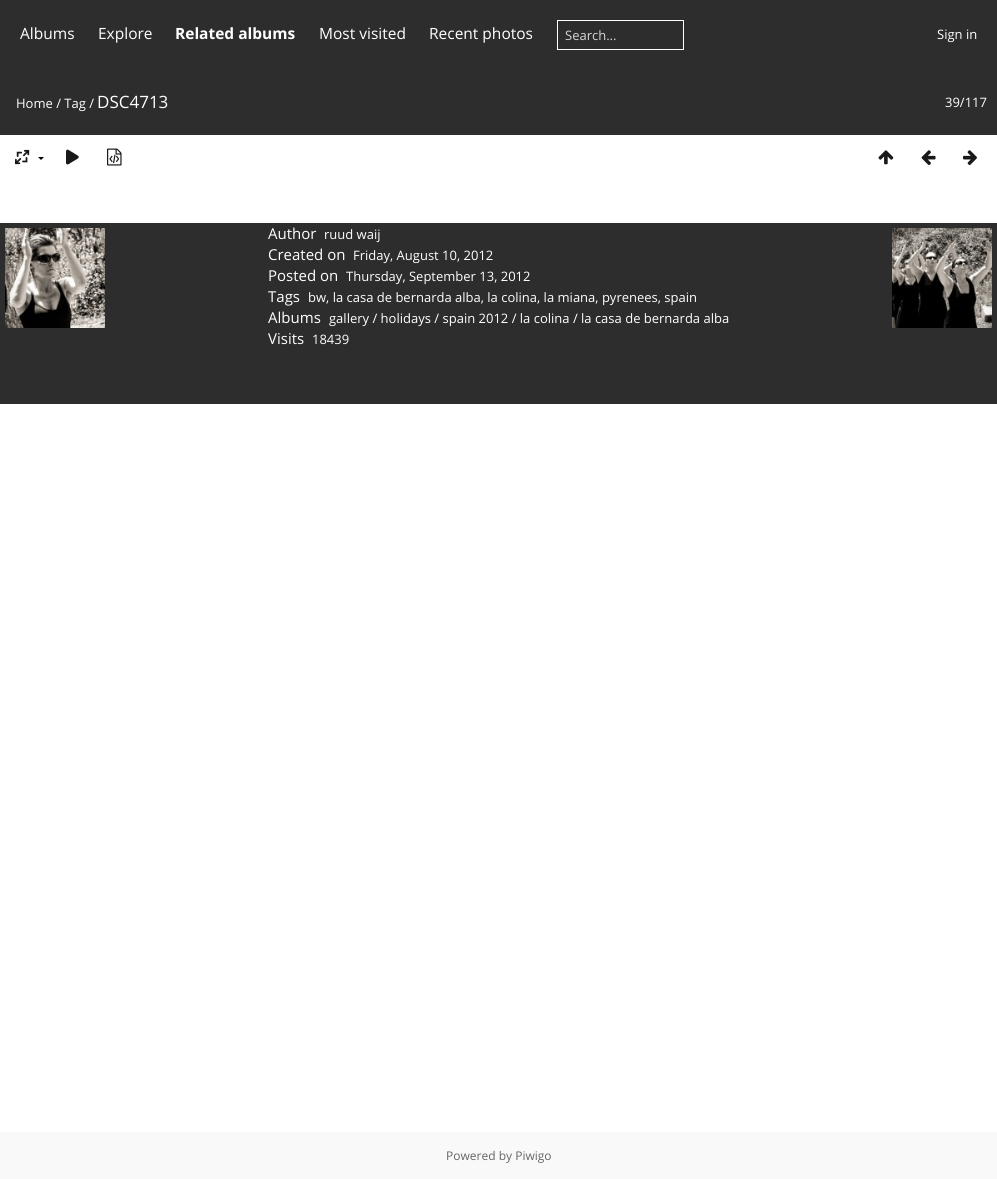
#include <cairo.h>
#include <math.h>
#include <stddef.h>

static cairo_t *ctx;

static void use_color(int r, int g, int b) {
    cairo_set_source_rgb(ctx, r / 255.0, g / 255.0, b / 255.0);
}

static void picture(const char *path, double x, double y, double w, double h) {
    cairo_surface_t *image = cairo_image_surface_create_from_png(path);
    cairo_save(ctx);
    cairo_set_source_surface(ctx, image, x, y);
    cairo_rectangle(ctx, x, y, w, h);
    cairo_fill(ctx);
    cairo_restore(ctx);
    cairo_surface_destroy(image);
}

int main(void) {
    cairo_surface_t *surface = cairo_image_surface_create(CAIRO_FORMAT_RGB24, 997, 1179);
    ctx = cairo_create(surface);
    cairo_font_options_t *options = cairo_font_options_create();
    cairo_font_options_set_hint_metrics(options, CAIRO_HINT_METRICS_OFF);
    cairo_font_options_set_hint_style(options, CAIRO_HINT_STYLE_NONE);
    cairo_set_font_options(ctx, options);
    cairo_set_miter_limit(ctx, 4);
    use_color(255, 255, 255);
    cairo_paint(ctx);
    use_color(45, 45, 45);
    cairo_rectangle(ctx, 0, 0, 997, 135);
    cairo_fill(ctx);
    cairo_select_font_face(ctx, "Open Sans", CAIRO_FONT_SLANT_NORMAL, CAIRO_FONT_WEIGHT_NORMAL);
    cairo_set_font_size(ctx, 15.5);
    use_color(255, 255, 255);
    cairo_move_to(ctx, 20, 39);
    cairo_show_text(ctx, "Albums");
    cairo_move_to(ctx, 98, 39);
    cairo_show_text(ctx, "Explore");
    cairo_select_font_face(ctx, "Open Sans", CAIRO_FONT_SLANT_NORMAL, CAIRO_FONT_WEIGHT_BOLD);
    cairo_move_to(ctx, 175, 39);
    cairo_show_text(ctx, "Related albums");
    cairo_select_font_face(ctx, "Open Sans", CAIRO_FONT_SLANT_NORMAL, CAIRO_FONT_WEIGHT_NORMAL);
    cairo_move_to(ctx, 319, 39);
    cairo_show_text(ctx, "Most visited");
    cairo_move_to(ctx, 429, 39);
    cairo_show_text(ctx, "Recent photos");
    cairo_rectangle(ctx, 557.5, 20.5, 126, 29);
    cairo_set_line_width(ctx, 1);
    cairo_stroke(ctx);
    cairo_set_font_size(ctx, 13);
    use_color(214, 214, 214);
    cairo_move_to(ctx, 565, 40);
    cairo_show_text(ctx, "Search...");
    use_color(255, 255, 255);
    cairo_move_to(ctx, 937, 39);
    cairo_show_text(ctx, "Sign in");
    cairo_move_to(ctx, 16, 108);
    cairo_show_text(ctx, "Home / Tag /");
    cairo_set_font_size(ctx, 17);
    cairo_move_to(ctx, 97, 108);
    cairo_show_text(ctx, "DSC4713");
    cairo_set_font_size(ctx, 13);
    cairo_move_to(ctx, 945, 107);
    cairo_show_text(ctx, "39/117");
    picture("img1.png", 15, 149, 15, 16);
    use_color(0, 0, 0);
    cairo_new_path(ctx);
    cairo_move_to(ctx, 38, 157);
    cairo_line_to(ctx, 44, 157);
    cairo_line_to(ctx, 41, 160);
    cairo_close_path(ctx);
    cairo_fill(ctx);
    picture("img2.png", 66, 149, 13, 16);
    picture("img3.png", 107, 148, 15, 18);
    picture("img4.png", 878, 150, 16, 15);
    picture("img5.png", 921, 150, 15, 15);
    picture("img6.png", 963, 150, 14, 15);
    use_color(45, 45, 45);
    cairo_rectangle(ctx, 0, 223, 997, 181);
    cairo_fill(ctx);
    cairo_set_font_size(ctx, 15);
    use_color(255, 255, 255);
    cairo_move_to(ctx, 268, 239);
    cairo_show_text(ctx, "Author");
    cairo_set_font_size(ctx, 13);
    cairo_move_to(ctx, 324, 239);
    cairo_show_text(ctx, "ruud waij");
    cairo_set_font_size(ctx, 15);
    cairo_move_to(ctx, 268, 260);
    cairo_show_text(ctx, "Created on");
    cairo_set_font_size(ctx, 13);
    cairo_move_to(ctx, 353, 260);
    cairo_show_text(ctx, "Friday, August 10, 2012");
    cairo_set_font_size(ctx, 15);
    cairo_move_to(ctx, 268, 281);
    cairo_show_text(ctx, "Posted on");
    cairo_set_font_size(ctx, 13);
    cairo_move_to(ctx, 346, 281);
    cairo_show_text(ctx, "Thursday, September 13, 2012");
    cairo_set_font_size(ctx, 15);
    cairo_move_to(ctx, 268, 302);
    cairo_show_text(ctx, "Tags");
    cairo_set_font_size(ctx, 13);
    cairo_move_to(ctx, 308, 302);
    cairo_show_text(ctx, "bw, la casa de bernarda alba, la colina, la miana, pyrenees, spain");
    cairo_set_font_size(ctx, 15);
    cairo_move_to(ctx, 268, 323);
    cairo_show_text(ctx, "Albums");
    cairo_set_font_size(ctx, 13);
    cairo_move_to(ctx, 329, 323);
    cairo_show_text(ctx, "gallery / holidays / spain 2012 / la colina / la casa de bernarda alba");
    cairo_set_font_size(ctx, 15);
    cairo_move_to(ctx, 268, 344);
    cairo_show_text(ctx, "Visits");
    cairo_set_font_size(ctx, 13);
    cairo_move_to(ctx, 312, 344);
    cairo_show_text(ctx, "18439");
    picture("img7.png", 5, 228, 100, 100);
    picture("img8.png", 892, 228, 100, 100);
    use_color(249, 249, 249);
    cairo_rectangle(ctx, 0, 1132, 997, 47);
    cairo_fill(ctx);
    cairo_set_font_size(ctx, 12);
    use_color(102, 102, 102);
    cairo_move_to(ctx, 446, 1160);
    cairo_show_text(ctx, "Powered by Piwigo");
    cairo_surface_write_to_png(surface, "result.png");
    cairo_font_options_destroy(options);
    cairo_destroy(ctx);
    cairo_surface_destroy(surface);
    return 0;
}
